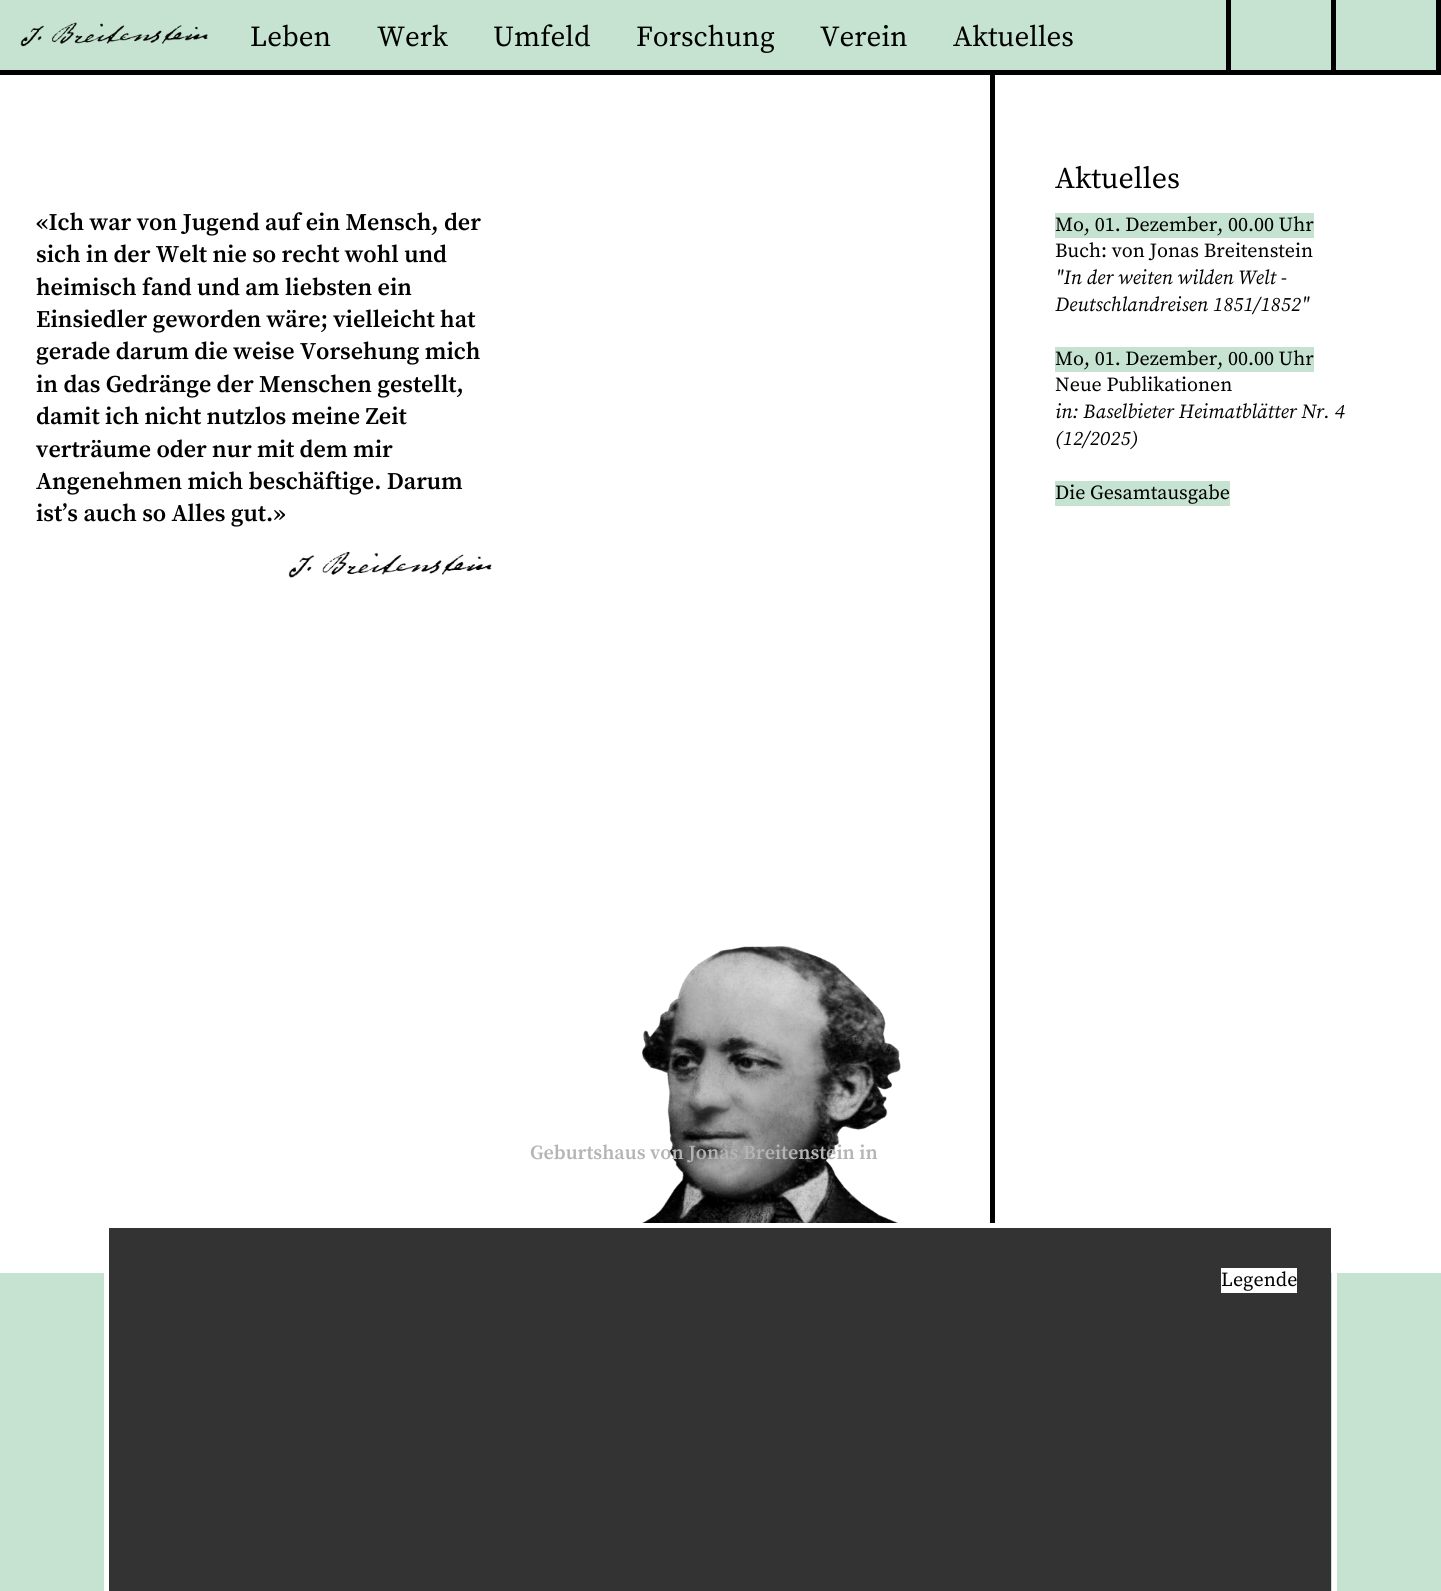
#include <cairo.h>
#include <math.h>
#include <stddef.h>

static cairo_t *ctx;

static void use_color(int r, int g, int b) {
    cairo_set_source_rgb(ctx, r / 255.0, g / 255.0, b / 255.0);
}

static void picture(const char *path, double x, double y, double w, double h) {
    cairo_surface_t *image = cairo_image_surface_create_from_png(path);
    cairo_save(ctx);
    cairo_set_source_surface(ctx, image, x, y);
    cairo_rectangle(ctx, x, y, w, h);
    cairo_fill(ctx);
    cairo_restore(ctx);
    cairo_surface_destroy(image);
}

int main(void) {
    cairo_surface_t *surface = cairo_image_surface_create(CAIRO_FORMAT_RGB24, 1441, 1591);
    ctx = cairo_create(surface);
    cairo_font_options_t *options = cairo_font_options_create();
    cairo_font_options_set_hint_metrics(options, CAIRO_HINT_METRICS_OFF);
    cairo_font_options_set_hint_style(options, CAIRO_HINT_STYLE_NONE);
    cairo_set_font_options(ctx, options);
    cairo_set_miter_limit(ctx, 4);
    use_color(255, 255, 255);
    cairo_paint(ctx);
    use_color(197, 227, 208);
    cairo_rectangle(ctx, 0, 0, 1436, 70);
    cairo_fill(ctx);
    use_color(0, 0, 0);
    cairo_rectangle(ctx, 0, 70, 1441, 5);
    cairo_fill(ctx);
    picture("img1.png", 20, 22, 188, 25);
    cairo_select_font_face(ctx, "Source Serif Pro", CAIRO_FONT_SLANT_NORMAL, CAIRO_FONT_WEIGHT_NORMAL);
    cairo_set_font_size(ctx, 29);
    cairo_move_to(ctx, 250, 46);
    cairo_show_text(ctx, "Leben");
    cairo_move_to(ctx, 377, 46);
    cairo_show_text(ctx, "Werk");
    cairo_move_to(ctx, 493, 46);
    cairo_show_text(ctx, "Umfeld");
    cairo_move_to(ctx, 636, 46);
    cairo_show_text(ctx, "Forschung");
    cairo_move_to(ctx, 820, 46);
    cairo_show_text(ctx, "Verein");
    cairo_move_to(ctx, 953, 46);
    cairo_show_text(ctx, "Aktuelles");
    cairo_rectangle(ctx, 1226, 0, 5, 70);
    cairo_fill(ctx);
    cairo_rectangle(ctx, 1331, 0, 5, 70);
    cairo_fill(ctx);
    cairo_rectangle(ctx, 1436, 0, 5, 70);
    cairo_fill(ctx);
    cairo_select_font_face(ctx, "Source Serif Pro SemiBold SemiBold", CAIRO_FONT_SLANT_NORMAL, CAIRO_FONT_WEIGHT_NORMAL);
    cairo_set_font_size(ctx, 24);
    cairo_move_to(ctx, 36, 230);
    cairo_show_text(ctx, "«Ich war von Jugend auf ein Mensch, der");
    cairo_move_to(ctx, 36, 262);
    cairo_show_text(ctx, "sich in der Welt nie so recht wohl und");
    cairo_move_to(ctx, 36, 295);
    cairo_show_text(ctx, "heimisch fand und am liebsten ein");
    cairo_move_to(ctx, 36, 327);
    cairo_show_text(ctx, "Einsiedler geworden wäre; vielleicht hat");
    cairo_move_to(ctx, 36, 359);
    cairo_show_text(ctx, "gerade darum die weise Vorsehung mich");
    cairo_move_to(ctx, 36, 392);
    cairo_show_text(ctx, "in das Gedränge der Menschen gestellt,");
    cairo_move_to(ctx, 36, 424);
    cairo_show_text(ctx, "damit ich nicht nutzlos meine Zeit");
    cairo_move_to(ctx, 36, 457);
    cairo_show_text(ctx, "verträume oder nur mit dem mir");
    cairo_move_to(ctx, 36, 489);
    cairo_show_text(ctx, "Angenehmen mich beschäftige. Darum");
    cairo_move_to(ctx, 36, 521);
    cairo_show_text(ctx, "ist’s auch so Alles gut.»");
    picture("img2.png", 288, 551, 204, 27);
    picture("img3.png", 642, 946, 259, 277);
    cairo_rectangle(ctx, 990, 75, 5, 1148);
    cairo_fill(ctx);
    cairo_select_font_face(ctx, "Source Serif Pro", CAIRO_FONT_SLANT_NORMAL, CAIRO_FONT_WEIGHT_NORMAL);
    cairo_set_font_size(ctx, 30);
    cairo_move_to(ctx, 1055, 188);
    cairo_show_text(ctx, "Aktuelles");
    use_color(197, 227, 208);
    cairo_rectangle(ctx, 1055, 213, 259, 25);
    cairo_fill(ctx);
    cairo_set_font_size(ctx, 20);
    use_color(0, 0, 0);
    cairo_move_to(ctx, 1055, 231);
    cairo_show_text(ctx, "Mo, 01. Dezember, 00.00 Uhr");
    cairo_move_to(ctx, 1055, 257);
    cairo_show_text(ctx, "Buch: von Jonas Breitenstein");
    cairo_select_font_face(ctx, "Source Serif Pro", CAIRO_FONT_SLANT_ITALIC, CAIRO_FONT_WEIGHT_NORMAL);
    cairo_move_to(ctx, 1055, 284);
    cairo_show_text(ctx, "\"In der weiten wilden Welt -");
    cairo_move_to(ctx, 1055, 311);
    cairo_show_text(ctx, "Deutschlandreisen 1851/1852\"");
    use_color(197, 227, 208);
    cairo_rectangle(ctx, 1055, 347, 259, 25);
    cairo_fill(ctx);
    cairo_select_font_face(ctx, "Source Serif Pro", CAIRO_FONT_SLANT_NORMAL, CAIRO_FONT_WEIGHT_NORMAL);
    use_color(0, 0, 0);
    cairo_move_to(ctx, 1055, 365);
    cairo_show_text(ctx, "Mo, 01. Dezember, 00.00 Uhr");
    cairo_move_to(ctx, 1055, 391);
    cairo_show_text(ctx, "Neue Publikationen");
    cairo_select_font_face(ctx, "Source Serif Pro", CAIRO_FONT_SLANT_ITALIC, CAIRO_FONT_WEIGHT_NORMAL);
    cairo_move_to(ctx, 1055, 418);
    cairo_show_text(ctx, "in: Baselbieter Heimatblätter Nr. 4");
    cairo_move_to(ctx, 1055, 445);
    cairo_show_text(ctx, "(12/2025)");
    use_color(197, 227, 208);
    cairo_rectangle(ctx, 1055, 481, 175, 25);
    cairo_fill(ctx);
    cairo_select_font_face(ctx, "Source Serif Pro", CAIRO_FONT_SLANT_NORMAL, CAIRO_FONT_WEIGHT_NORMAL);
    use_color(0, 0, 0);
    cairo_move_to(ctx, 1055, 499);
    cairo_show_text(ctx, "Die Gesamtausgabe");
    use_color(197, 227, 208);
    cairo_rectangle(ctx, 0, 1273, 1441, 318);
    cairo_fill(ctx);
    cairo_select_font_face(ctx, "Source Serif Pro SemiBold SemiBold", CAIRO_FONT_SLANT_NORMAL, CAIRO_FONT_WEIGHT_NORMAL);
    use_color(180, 180, 180);
    cairo_move_to(ctx, 530, 1159);
    cairo_show_text(ctx, "Geburtshaus von Jonas Breitenstein in");
    cairo_rectangle(ctx, 106.5, 1225.5, 1228, 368);
    use_color(255, 255, 255);
    cairo_set_line_width(ctx, 5);
    cairo_stroke(ctx);
    use_color(51, 51, 51);
    cairo_rectangle(ctx, 109, 1228, 1222, 363);
    cairo_fill(ctx);
    use_color(255, 255, 255);
    cairo_rectangle(ctx, 1221, 1268, 76, 25);
    cairo_fill(ctx);
    cairo_select_font_face(ctx, "Source Serif Pro", CAIRO_FONT_SLANT_NORMAL, CAIRO_FONT_WEIGHT_NORMAL);
    use_color(0, 0, 0);
    cairo_move_to(ctx, 1221, 1286);
    cairo_show_text(ctx, "Legende");
    cairo_surface_write_to_png(surface, "result.png");
    cairo_font_options_destroy(options);
    cairo_destroy(ctx);
    cairo_surface_destroy(surface);
    return 0;
}
